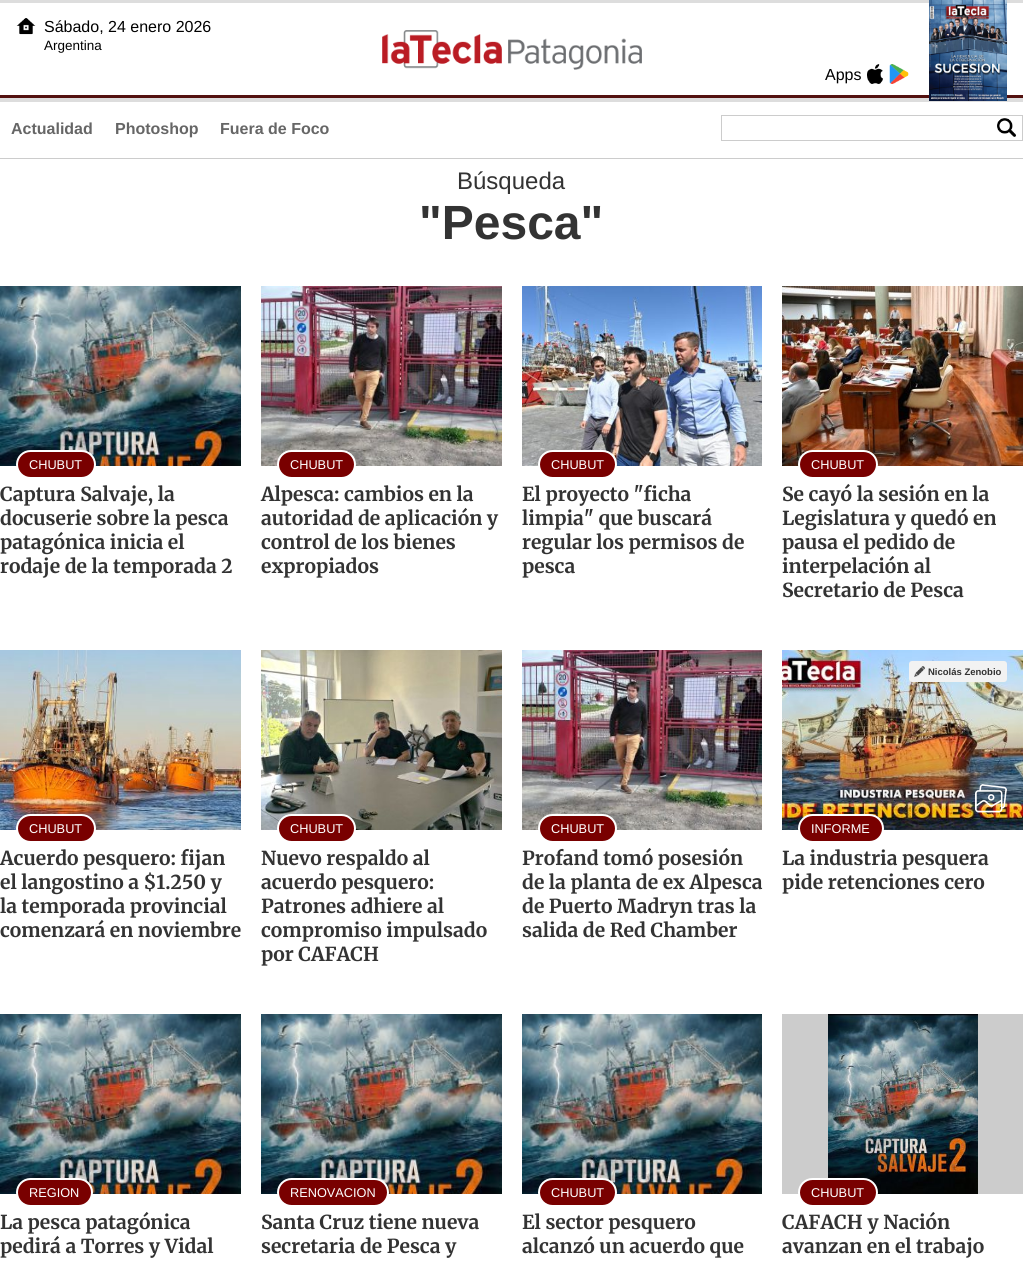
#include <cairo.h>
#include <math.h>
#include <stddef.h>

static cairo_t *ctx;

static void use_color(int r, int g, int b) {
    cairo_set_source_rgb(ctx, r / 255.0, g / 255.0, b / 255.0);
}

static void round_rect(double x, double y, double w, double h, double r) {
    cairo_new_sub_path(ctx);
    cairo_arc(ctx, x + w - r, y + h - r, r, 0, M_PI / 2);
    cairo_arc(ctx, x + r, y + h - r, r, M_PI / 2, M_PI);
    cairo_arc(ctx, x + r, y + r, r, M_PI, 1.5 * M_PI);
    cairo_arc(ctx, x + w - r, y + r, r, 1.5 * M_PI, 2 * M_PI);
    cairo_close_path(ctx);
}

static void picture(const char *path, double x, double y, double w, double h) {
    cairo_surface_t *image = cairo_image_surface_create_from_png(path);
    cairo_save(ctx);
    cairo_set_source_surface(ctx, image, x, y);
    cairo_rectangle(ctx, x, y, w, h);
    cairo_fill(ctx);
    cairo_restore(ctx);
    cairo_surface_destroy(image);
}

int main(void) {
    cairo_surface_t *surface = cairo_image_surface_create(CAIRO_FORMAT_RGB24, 1023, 1272);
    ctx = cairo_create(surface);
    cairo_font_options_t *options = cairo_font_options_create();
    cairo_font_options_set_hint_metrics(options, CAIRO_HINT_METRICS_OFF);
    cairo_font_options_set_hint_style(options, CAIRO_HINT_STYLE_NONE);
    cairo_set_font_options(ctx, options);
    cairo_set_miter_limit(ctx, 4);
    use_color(255, 255, 255);
    cairo_paint(ctx);
    picture("img1.png", 0, 0, 1023, 102);
    use_color(204, 204, 204);
    cairo_rectangle(ctx, 0, 158, 1023, 1);
    cairo_fill(ctx);
    picture("img2.png", 16, 18, 20, 17);
    cairo_select_font_face(ctx, "Liberation Sans", CAIRO_FONT_SLANT_NORMAL, CAIRO_FONT_WEIGHT_NORMAL);
    cairo_set_font_size(ctx, 16);
    use_color(0, 0, 0);
    cairo_move_to(ctx, 44, 32);
    cairo_show_text(ctx, "Sábado, 24 enero 2026");
    cairo_set_font_size(ctx, 13.5);
    cairo_move_to(ctx, 44, 50);
    cairo_show_text(ctx, "Argentina");
    picture("img3.png", 382, 30, 260, 40);
    cairo_set_font_size(ctx, 16);
    cairo_move_to(ctx, 825, 80);
    cairo_show_text(ctx, "Apps");
    picture("img4.png", 867, 64, 16, 20);
    picture("img5.png", 889, 64, 20, 20);
    picture("img6.png", 929, 0, 78, 101);
    cairo_select_font_face(ctx, "Liberation Sans", CAIRO_FONT_SLANT_NORMAL, CAIRO_FONT_WEIGHT_BOLD);
    use_color(102, 102, 102);
    cairo_move_to(ctx, 11, 134);
    cairo_show_text(ctx, "Actualidad");
    cairo_move_to(ctx, 115, 134);
    cairo_show_text(ctx, "Photoshop");
    cairo_move_to(ctx, 220, 134);
    cairo_show_text(ctx, "Fuera de Foco");
    cairo_rectangle(ctx, 721.5, 115.5, 301, 25);
    use_color(204, 204, 204);
    cairo_set_line_width(ctx, 1);
    cairo_stroke(ctx);
    picture("img7.png", 997, 118, 19, 19);
    cairo_select_font_face(ctx, "Liberation Sans", CAIRO_FONT_SLANT_NORMAL, CAIRO_FONT_WEIGHT_NORMAL);
    cairo_set_font_size(ctx, 24);
    use_color(51, 51, 51);
    cairo_move_to(ctx, 457, 189);
    cairo_show_text(ctx, "Búsqueda");
    cairo_select_font_face(ctx, "Liberation Sans", CAIRO_FONT_SLANT_NORMAL, CAIRO_FONT_WEIGHT_BOLD);
    cairo_set_font_size(ctx, 48);
    cairo_move_to(ctx, 419, 239);
    cairo_show_text(ctx, "\"Pesca\"");
    picture("img8.png", 0, 286, 241, 180);
    use_color(121, 0, 0);
    round_rect(17, 451, 78, 27, 13.5);
    cairo_fill_preserve(ctx);
    use_color(255, 255, 255);
    cairo_set_line_width(ctx, 2);
    cairo_stroke(ctx);
    cairo_select_font_face(ctx, "Liberation Sans", CAIRO_FONT_SLANT_NORMAL, CAIRO_FONT_WEIGHT_NORMAL);
    cairo_set_font_size(ctx, 12.75);
    cairo_move_to(ctx, 29, 469);
    cairo_show_text(ctx, "CHUBUT");
    cairo_select_font_face(ctx, "Merriweather", CAIRO_FONT_SLANT_NORMAL, CAIRO_FONT_WEIGHT_BOLD);
    cairo_set_font_size(ctx, 19.25);
    use_color(51, 51, 51);
    cairo_move_to(ctx, 0, 501);
    cairo_show_text(ctx, "Captura Salvaje, la");
    cairo_move_to(ctx, 0, 525);
    cairo_show_text(ctx, "docuserie sobre la pesca");
    cairo_move_to(ctx, 0, 549);
    cairo_show_text(ctx, "patagónica inicia el");
    cairo_move_to(ctx, 0, 573);
    cairo_show_text(ctx, "rodaje de la temporada 2");
    picture("img9.png", 261, 286, 241, 180);
    use_color(121, 0, 0);
    round_rect(278, 451, 77, 27, 13.5);
    cairo_fill_preserve(ctx);
    use_color(255, 255, 255);
    cairo_stroke(ctx);
    cairo_select_font_face(ctx, "Liberation Sans", CAIRO_FONT_SLANT_NORMAL, CAIRO_FONT_WEIGHT_NORMAL);
    cairo_set_font_size(ctx, 12.75);
    cairo_move_to(ctx, 290, 469);
    cairo_show_text(ctx, "CHUBUT");
    cairo_select_font_face(ctx, "Merriweather", CAIRO_FONT_SLANT_NORMAL, CAIRO_FONT_WEIGHT_BOLD);
    cairo_set_font_size(ctx, 19.25);
    use_color(51, 51, 51);
    cairo_move_to(ctx, 261, 501);
    cairo_show_text(ctx, "Alpesca: cambios en la");
    cairo_move_to(ctx, 261, 525);
    cairo_show_text(ctx, "autoridad de aplicación y");
    cairo_move_to(ctx, 261, 549);
    cairo_show_text(ctx, "control de los bienes");
    cairo_move_to(ctx, 261, 573);
    cairo_show_text(ctx, "expropiados");
    picture("img10.png", 522, 286, 240, 180);
    use_color(121, 0, 0);
    round_rect(539, 451, 77, 27, 13.5);
    cairo_fill_preserve(ctx);
    use_color(255, 255, 255);
    cairo_stroke(ctx);
    cairo_select_font_face(ctx, "Liberation Sans", CAIRO_FONT_SLANT_NORMAL, CAIRO_FONT_WEIGHT_NORMAL);
    cairo_set_font_size(ctx, 12.75);
    cairo_move_to(ctx, 551, 469);
    cairo_show_text(ctx, "CHUBUT");
    cairo_select_font_face(ctx, "Merriweather", CAIRO_FONT_SLANT_NORMAL, CAIRO_FONT_WEIGHT_BOLD);
    cairo_set_font_size(ctx, 19.25);
    use_color(51, 51, 51);
    cairo_move_to(ctx, 522, 501);
    cairo_show_text(ctx, "El proyecto \"ficha");
    cairo_move_to(ctx, 522, 525);
    cairo_show_text(ctx, "limpia\" que buscará");
    cairo_move_to(ctx, 522, 549);
    cairo_show_text(ctx, "regular los permisos de");
    cairo_move_to(ctx, 522, 573);
    cairo_show_text(ctx, "pesca");
    picture("img11.png", 782, 286, 241, 180);
    use_color(121, 0, 0);
    round_rect(799, 451, 78, 27, 13.5);
    cairo_fill_preserve(ctx);
    use_color(255, 255, 255);
    cairo_stroke(ctx);
    cairo_select_font_face(ctx, "Liberation Sans", CAIRO_FONT_SLANT_NORMAL, CAIRO_FONT_WEIGHT_NORMAL);
    cairo_set_font_size(ctx, 12.75);
    cairo_move_to(ctx, 811, 469);
    cairo_show_text(ctx, "CHUBUT");
    cairo_select_font_face(ctx, "Merriweather", CAIRO_FONT_SLANT_NORMAL, CAIRO_FONT_WEIGHT_BOLD);
    cairo_set_font_size(ctx, 19.25);
    use_color(51, 51, 51);
    cairo_move_to(ctx, 782, 501);
    cairo_show_text(ctx, "Se cayó la sesión en la");
    cairo_move_to(ctx, 782, 525);
    cairo_show_text(ctx, "Legislatura y quedó en");
    cairo_move_to(ctx, 782, 549);
    cairo_show_text(ctx, "pausa el pedido de");
    cairo_move_to(ctx, 782, 573);
    cairo_show_text(ctx, "interpelación al");
    cairo_move_to(ctx, 782, 597);
    cairo_show_text(ctx, "Secretario de Pesca");
    picture("img12.png", 0, 650, 241, 180);
    use_color(121, 0, 0);
    round_rect(17, 815, 78, 27, 13.5);
    cairo_fill_preserve(ctx);
    use_color(255, 255, 255);
    cairo_stroke(ctx);
    cairo_select_font_face(ctx, "Liberation Sans", CAIRO_FONT_SLANT_NORMAL, CAIRO_FONT_WEIGHT_NORMAL);
    cairo_set_font_size(ctx, 12.75);
    cairo_move_to(ctx, 29, 833);
    cairo_show_text(ctx, "CHUBUT");
    cairo_select_font_face(ctx, "Merriweather", CAIRO_FONT_SLANT_NORMAL, CAIRO_FONT_WEIGHT_BOLD);
    cairo_set_font_size(ctx, 19.25);
    use_color(51, 51, 51);
    cairo_move_to(ctx, 0, 865);
    cairo_show_text(ctx, "Acuerdo pesquero: fijan");
    cairo_move_to(ctx, 0, 889);
    cairo_show_text(ctx, "el langostino a $1.250 y");
    cairo_move_to(ctx, 0, 913);
    cairo_show_text(ctx, "la temporada provincial");
    cairo_move_to(ctx, 0, 937);
    cairo_show_text(ctx, "comenzará en noviembre");
    picture("img13.png", 261, 650, 241, 180);
    use_color(121, 0, 0);
    round_rect(278, 815, 77, 27, 13.5);
    cairo_fill_preserve(ctx);
    use_color(255, 255, 255);
    cairo_stroke(ctx);
    cairo_select_font_face(ctx, "Liberation Sans", CAIRO_FONT_SLANT_NORMAL, CAIRO_FONT_WEIGHT_NORMAL);
    cairo_set_font_size(ctx, 12.75);
    cairo_move_to(ctx, 290, 833);
    cairo_show_text(ctx, "CHUBUT");
    cairo_select_font_face(ctx, "Merriweather", CAIRO_FONT_SLANT_NORMAL, CAIRO_FONT_WEIGHT_BOLD);
    cairo_set_font_size(ctx, 19.25);
    use_color(51, 51, 51);
    cairo_move_to(ctx, 261, 865);
    cairo_show_text(ctx, "Nuevo respaldo al");
    cairo_move_to(ctx, 261, 889);
    cairo_show_text(ctx, "acuerdo pesquero:");
    cairo_move_to(ctx, 261, 913);
    cairo_show_text(ctx, "Patrones adhiere al");
    cairo_move_to(ctx, 261, 937);
    cairo_show_text(ctx, "compromiso impulsado");
    cairo_move_to(ctx, 261, 961);
    cairo_show_text(ctx, "por CAFACH");
    picture("img14.png", 522, 650, 240, 180);
    use_color(121, 0, 0);
    round_rect(539, 815, 77, 27, 13.5);
    cairo_fill_preserve(ctx);
    use_color(255, 255, 255);
    cairo_stroke(ctx);
    cairo_select_font_face(ctx, "Liberation Sans", CAIRO_FONT_SLANT_NORMAL, CAIRO_FONT_WEIGHT_NORMAL);
    cairo_set_font_size(ctx, 12.75);
    cairo_move_to(ctx, 551, 833);
    cairo_show_text(ctx, "CHUBUT");
    cairo_select_font_face(ctx, "Merriweather", CAIRO_FONT_SLANT_NORMAL, CAIRO_FONT_WEIGHT_BOLD);
    cairo_set_font_size(ctx, 19.25);
    use_color(51, 51, 51);
    cairo_move_to(ctx, 522, 865);
    cairo_show_text(ctx, "Profand tomó posesión");
    cairo_move_to(ctx, 522, 889);
    cairo_show_text(ctx, "de la planta de ex Alpesca");
    cairo_move_to(ctx, 522, 913);
    cairo_show_text(ctx, "de Puerto Madryn tras la");
    cairo_move_to(ctx, 522, 937);
    cairo_show_text(ctx, "salida de Red Chamber");
    picture("img15.png", 782, 650, 241, 180);
    use_color(242, 242, 242);
    round_rect(909, 661, 98, 21, 3);
    cairo_fill(ctx);
    picture("img16.png", 914, 666, 11, 11);
    cairo_select_font_face(ctx, "Liberation Sans", CAIRO_FONT_SLANT_NORMAL, CAIRO_FONT_WEIGHT_BOLD);
    cairo_set_font_size(ctx, 9.5);
    use_color(51, 51, 51);
    cairo_move_to(ctx, 928, 675);
    cairo_show_text(ctx, "Nicolás Zenobio");
    picture("img17.png", 975, 784, 32, 29);
    use_color(121, 0, 0);
    round_rect(799, 815, 84, 27, 13.5);
    cairo_fill_preserve(ctx);
    use_color(255, 255, 255);
    cairo_stroke(ctx);
    cairo_select_font_face(ctx, "Liberation Sans", CAIRO_FONT_SLANT_NORMAL, CAIRO_FONT_WEIGHT_NORMAL);
    cairo_set_font_size(ctx, 12.75);
    cairo_move_to(ctx, 811, 833);
    cairo_show_text(ctx, "INFORME");
    cairo_select_font_face(ctx, "Merriweather", CAIRO_FONT_SLANT_NORMAL, CAIRO_FONT_WEIGHT_BOLD);
    cairo_set_font_size(ctx, 19.25);
    use_color(51, 51, 51);
    cairo_move_to(ctx, 782, 865);
    cairo_show_text(ctx, "La industria pesquera");
    cairo_move_to(ctx, 782, 889);
    cairo_show_text(ctx, "pide retenciones cero");
    picture("img8.png", 0, 1014, 241, 180);
    use_color(121, 0, 0);
    round_rect(17, 1179, 75, 27, 13.5);
    cairo_fill_preserve(ctx);
    use_color(255, 255, 255);
    cairo_stroke(ctx);
    cairo_select_font_face(ctx, "Liberation Sans", CAIRO_FONT_SLANT_NORMAL, CAIRO_FONT_WEIGHT_NORMAL);
    cairo_set_font_size(ctx, 12.75);
    cairo_move_to(ctx, 29, 1197);
    cairo_show_text(ctx, "REGION");
    cairo_select_font_face(ctx, "Merriweather", CAIRO_FONT_SLANT_NORMAL, CAIRO_FONT_WEIGHT_BOLD);
    cairo_set_font_size(ctx, 19.25);
    use_color(51, 51, 51);
    cairo_move_to(ctx, 0, 1229);
    cairo_show_text(ctx, "La pesca patagónica");
    cairo_move_to(ctx, 0, 1253);
    cairo_show_text(ctx, "pedirá a Torres y Vidal");
    picture("img18.png", 261, 1014, 241, 180);
    use_color(121, 0, 0);
    round_rect(278, 1179, 110, 27, 13.5);
    cairo_fill_preserve(ctx);
    use_color(255, 255, 255);
    cairo_stroke(ctx);
    cairo_select_font_face(ctx, "Liberation Sans", CAIRO_FONT_SLANT_NORMAL, CAIRO_FONT_WEIGHT_NORMAL);
    cairo_set_font_size(ctx, 12.75);
    cairo_move_to(ctx, 290, 1197);
    cairo_show_text(ctx, "RENOVACION");
    cairo_select_font_face(ctx, "Merriweather", CAIRO_FONT_SLANT_NORMAL, CAIRO_FONT_WEIGHT_BOLD);
    cairo_set_font_size(ctx, 19.25);
    use_color(51, 51, 51);
    cairo_move_to(ctx, 261, 1229);
    cairo_show_text(ctx, "Santa Cruz tiene nueva");
    cairo_move_to(ctx, 261, 1253);
    cairo_show_text(ctx, "secretaria de Pesca y");
    picture("img19.png", 522, 1014, 240, 180);
    use_color(121, 0, 0);
    round_rect(539, 1179, 77, 27, 13.5);
    cairo_fill_preserve(ctx);
    use_color(255, 255, 255);
    cairo_stroke(ctx);
    cairo_select_font_face(ctx, "Liberation Sans", CAIRO_FONT_SLANT_NORMAL, CAIRO_FONT_WEIGHT_NORMAL);
    cairo_set_font_size(ctx, 12.75);
    cairo_move_to(ctx, 551, 1197);
    cairo_show_text(ctx, "CHUBUT");
    cairo_select_font_face(ctx, "Merriweather", CAIRO_FONT_SLANT_NORMAL, CAIRO_FONT_WEIGHT_BOLD);
    cairo_set_font_size(ctx, 19.25);
    use_color(51, 51, 51);
    cairo_move_to(ctx, 522, 1229);
    cairo_show_text(ctx, "El sector pesquero");
    cairo_move_to(ctx, 522, 1253);
    cairo_show_text(ctx, "alcanzó un acuerdo que");
    use_color(204, 204, 204);
    cairo_rectangle(ctx, 782, 1014, 241, 180);
    cairo_fill(ctx);
    picture("img20.png", 828, 1014, 150, 180);
    use_color(121, 0, 0);
    round_rect(799, 1179, 78, 27, 13.5);
    cairo_fill_preserve(ctx);
    use_color(255, 255, 255);
    cairo_stroke(ctx);
    cairo_select_font_face(ctx, "Liberation Sans", CAIRO_FONT_SLANT_NORMAL, CAIRO_FONT_WEIGHT_NORMAL);
    cairo_set_font_size(ctx, 12.75);
    cairo_move_to(ctx, 811, 1197);
    cairo_show_text(ctx, "CHUBUT");
    cairo_select_font_face(ctx, "Merriweather", CAIRO_FONT_SLANT_NORMAL, CAIRO_FONT_WEIGHT_BOLD);
    cairo_set_font_size(ctx, 19.25);
    use_color(51, 51, 51);
    cairo_move_to(ctx, 782, 1229);
    cairo_show_text(ctx, "CAFACH y Nación");
    cairo_move_to(ctx, 782, 1253);
    cairo_show_text(ctx, "avanzan en el trabajo");
    cairo_surface_write_to_png(surface, "result.png");
    cairo_font_options_destroy(options);
    cairo_destroy(ctx);
    cairo_surface_destroy(surface);
    return 0;
}
